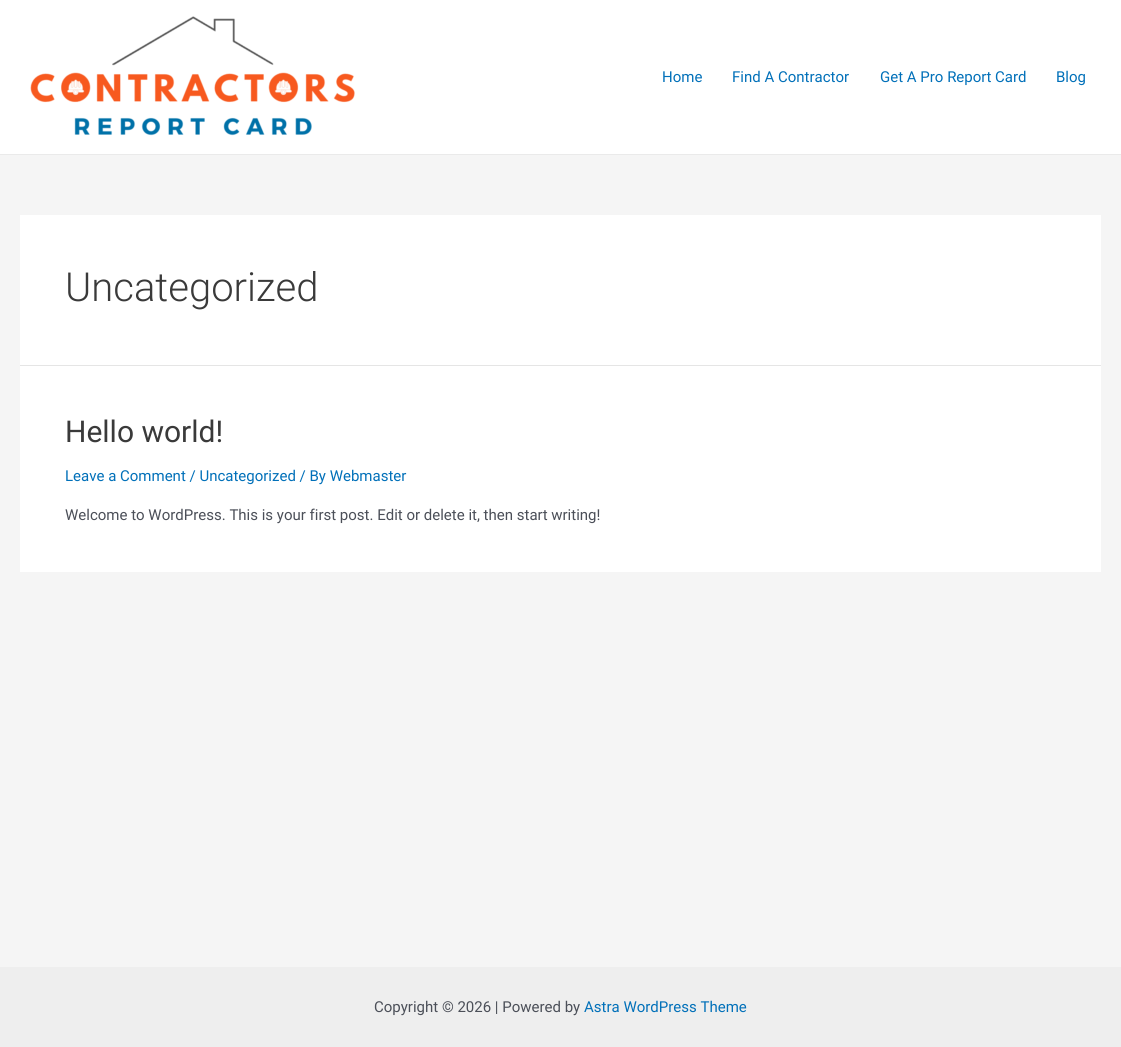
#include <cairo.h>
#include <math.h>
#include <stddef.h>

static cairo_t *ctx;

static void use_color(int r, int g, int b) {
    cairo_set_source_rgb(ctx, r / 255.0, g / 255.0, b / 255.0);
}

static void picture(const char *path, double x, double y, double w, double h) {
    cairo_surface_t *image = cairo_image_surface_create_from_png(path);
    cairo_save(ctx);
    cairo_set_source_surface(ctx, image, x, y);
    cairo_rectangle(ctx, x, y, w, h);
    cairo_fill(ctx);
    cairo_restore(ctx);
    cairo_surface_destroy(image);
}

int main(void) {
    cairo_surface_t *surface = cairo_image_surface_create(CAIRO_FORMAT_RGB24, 1121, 1047);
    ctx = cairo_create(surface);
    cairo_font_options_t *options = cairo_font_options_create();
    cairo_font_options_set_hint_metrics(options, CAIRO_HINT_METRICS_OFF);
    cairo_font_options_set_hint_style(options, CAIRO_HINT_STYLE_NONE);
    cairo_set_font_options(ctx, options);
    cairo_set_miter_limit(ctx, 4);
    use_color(245, 245, 245);
    cairo_paint(ctx);
    use_color(255, 255, 255);
    cairo_rectangle(ctx, 0, 0, 1121, 154);
    cairo_fill(ctx);
    use_color(234, 234, 234);
    cairo_rectangle(ctx, 0, 154, 1121, 1);
    cairo_fill(ctx);
    picture("img1.png", 30, 16, 325, 120);
    cairo_select_font_face(ctx, "Roboto", CAIRO_FONT_SLANT_NORMAL, CAIRO_FONT_WEIGHT_NORMAL);
    cairo_set_font_size(ctx, 15);
    use_color(1, 112, 185);
    cairo_move_to(ctx, 662, 82);
    cairo_show_text(ctx, "Home");
    cairo_move_to(ctx, 732, 82);
    cairo_show_text(ctx, "Find A Contractor");
    cairo_move_to(ctx, 880, 82);
    cairo_show_text(ctx, "Get A Pro Report Card");
    cairo_move_to(ctx, 1056, 82);
    cairo_show_text(ctx, "Blog");
    use_color(255, 255, 255);
    cairo_rectangle(ctx, 20, 215, 1081, 150);
    cairo_fill(ctx);
    use_color(229, 229, 229);
    cairo_rectangle(ctx, 20, 365, 1081, 1);
    cairo_fill(ctx);
    cairo_select_font_face(ctx, "Roboto Light", CAIRO_FONT_SLANT_NORMAL, CAIRO_FONT_WEIGHT_NORMAL);
    cairo_set_font_size(ctx, 40);
    use_color(58, 58, 58);
    cairo_move_to(ctx, 65, 301);
    cairo_show_text(ctx, "Uncategorized");
    use_color(255, 255, 255);
    cairo_rectangle(ctx, 20, 366, 1081, 206);
    cairo_fill(ctx);
    cairo_select_font_face(ctx, "Roboto", CAIRO_FONT_SLANT_NORMAL, CAIRO_FONT_WEIGHT_NORMAL);
    cairo_set_font_size(ctx, 30);
    use_color(58, 58, 58);
    cairo_move_to(ctx, 65, 442);
    cairo_show_text(ctx, "Hello world!");
    cairo_set_font_size(ctx, 15);
    use_color(1, 112, 185);
    cairo_move_to(ctx, 65, 481);
    cairo_show_text(ctx, "Leave a Comment / Uncategorized / By Webmaster");
    use_color(75, 79, 88);
    cairo_move_to(ctx, 65, 520);
    cairo_show_text(ctx, "Welcome to WordPress. This is your first post. Edit or delete it, then start writing!");
    use_color(238, 238, 238);
    cairo_rectangle(ctx, 0, 967, 1121, 80);
    cairo_fill(ctx);
    use_color(75, 79, 88);
    cairo_move_to(ctx, 374, 1012);
    cairo_show_text(ctx, "Copyright © 2026 | Powered by");
    use_color(1, 112, 185);
    cairo_move_to(ctx, 584, 1012);
    cairo_show_text(ctx, "Astra WordPress Theme");
    cairo_surface_write_to_png(surface, "result.png");
    cairo_font_options_destroy(options);
    cairo_destroy(ctx);
    cairo_surface_destroy(surface);
    return 0;
}
